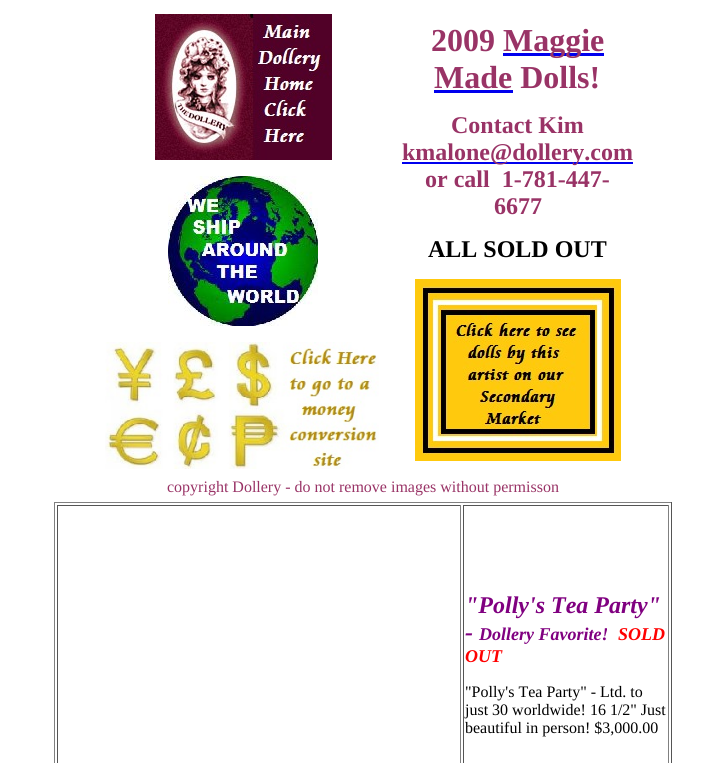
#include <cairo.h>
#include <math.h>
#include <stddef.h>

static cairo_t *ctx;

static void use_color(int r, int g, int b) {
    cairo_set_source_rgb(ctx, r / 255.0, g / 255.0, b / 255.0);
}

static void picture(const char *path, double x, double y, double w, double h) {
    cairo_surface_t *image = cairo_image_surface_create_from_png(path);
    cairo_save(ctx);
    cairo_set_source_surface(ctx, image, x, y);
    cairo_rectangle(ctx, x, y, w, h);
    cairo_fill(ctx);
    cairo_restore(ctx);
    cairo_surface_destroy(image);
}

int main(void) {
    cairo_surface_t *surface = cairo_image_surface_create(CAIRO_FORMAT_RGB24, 726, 763);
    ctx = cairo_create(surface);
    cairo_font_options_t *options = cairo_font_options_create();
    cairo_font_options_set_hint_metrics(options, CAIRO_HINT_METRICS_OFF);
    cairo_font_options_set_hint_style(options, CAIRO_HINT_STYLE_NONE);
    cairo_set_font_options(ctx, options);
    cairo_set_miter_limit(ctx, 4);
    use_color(255, 255, 255);
    cairo_paint(ctx);
    picture("img1.png", 155, 14, 177, 146);
    picture("img2.png", 168, 176, 150, 150);
    picture("img3.png", 105, 342, 274, 127);
    cairo_select_font_face(ctx, "Liberation Serif", CAIRO_FONT_SLANT_NORMAL, CAIRO_FONT_WEIGHT_BOLD);
    cairo_set_font_size(ctx, 32);
    use_color(153, 51, 102);
    cairo_move_to(ctx, 431, 51);
    cairo_show_text(ctx, "2009");
    use_color(0, 0, 238);
    cairo_rectangle(ctx, 503, 53, 101, 3);
    cairo_fill(ctx);
    use_color(153, 51, 102);
    cairo_move_to(ctx, 503, 51);
    cairo_show_text(ctx, "Maggie");
    cairo_move_to(ctx, 434, 88);
    cairo_show_text(ctx, "Made Dolls!");
    use_color(0, 0, 238);
    cairo_rectangle(ctx, 434, 90, 79, 3);
    cairo_fill(ctx);
    cairo_set_font_size(ctx, 24);
    use_color(153, 51, 102);
    cairo_move_to(ctx, 451, 133);
    cairo_show_text(ctx, "Contact Kim");
    use_color(0, 0, 238);
    cairo_rectangle(ctx, 402, 162, 231, 2);
    cairo_fill(ctx);
    use_color(153, 51, 102);
    cairo_move_to(ctx, 402, 160);
    cairo_show_text(ctx, "kmalone@dollery.com");
    cairo_move_to(ctx, 425, 187);
    cairo_show_text(ctx, "or call  1-781-447-");
    cairo_move_to(ctx, 494, 214);
    cairo_show_text(ctx, "6677");
    use_color(0, 0, 0);
    cairo_move_to(ctx, 428, 257);
    cairo_show_text(ctx, "ALL SOLD OUT");
    picture("img4.png", 415, 279, 206, 182);
    cairo_select_font_face(ctx, "Liberation Serif", CAIRO_FONT_SLANT_NORMAL, CAIRO_FONT_WEIGHT_NORMAL);
    cairo_set_font_size(ctx, 16);
    use_color(153, 51, 102);
    cairo_move_to(ctx, 167, 492);
    cairo_show_text(ctx, "copyright Dollery - do not remove images without permisson");
    use_color(128, 128, 128);
    cairo_rectangle(ctx, 54, 502, 618, 1);
    cairo_fill(ctx);
    use_color(85, 85, 85);
    cairo_rectangle(ctx, 671, 502, 1, 261);
    cairo_fill(ctx);
    use_color(128, 128, 128);
    cairo_rectangle(ctx, 54, 502, 1, 261);
    cairo_fill(ctx);
    use_color(85, 85, 85);
    cairo_rectangle(ctx, 57, 505, 404, 1);
    cairo_fill(ctx);
    use_color(128, 128, 128);
    cairo_rectangle(ctx, 460, 505, 1, 258);
    cairo_fill(ctx);
    use_color(85, 85, 85);
    cairo_rectangle(ctx, 57, 505, 1, 258);
    cairo_fill(ctx);
    cairo_rectangle(ctx, 463, 505, 206, 1);
    cairo_fill(ctx);
    use_color(128, 128, 128);
    cairo_rectangle(ctx, 668, 505, 1, 258);
    cairo_fill(ctx);
    use_color(85, 85, 85);
    cairo_rectangle(ctx, 463, 505, 1, 258);
    cairo_fill(ctx);
    cairo_select_font_face(ctx, "Liberation Serif", CAIRO_FONT_SLANT_ITALIC, CAIRO_FONT_WEIGHT_BOLD);
    cairo_set_font_size(ctx, 24);
    use_color(128, 0, 128);
    cairo_move_to(ctx, 465, 613);
    cairo_show_text(ctx, "\"Polly's Tea Party\"");
    cairo_move_to(ctx, 465, 640);
    cairo_show_text(ctx, "-");
    cairo_set_font_size(ctx, 18);
    cairo_move_to(ctx, 479, 640);
    cairo_show_text(ctx, "Dollery Favorite!");
    use_color(255, 0, 0);
    cairo_move_to(ctx, 618, 640);
    cairo_show_text(ctx, "SOLD");
    cairo_move_to(ctx, 465, 662);
    cairo_show_text(ctx, "OUT");
    cairo_select_font_face(ctx, "Liberation Serif", CAIRO_FONT_SLANT_NORMAL, CAIRO_FONT_WEIGHT_NORMAL);
    cairo_set_font_size(ctx, 16);
    use_color(0, 0, 0);
    cairo_move_to(ctx, 465, 697);
    cairo_show_text(ctx, "\"Polly's Tea Party\" - Ltd. to");
    cairo_move_to(ctx, 465, 715);
    cairo_show_text(ctx, "just 30 worldwide! 16 1/2\" Just");
    cairo_move_to(ctx, 465, 733);
    cairo_show_text(ctx, "beautiful in person! $3,000.00");
    cairo_surface_write_to_png(surface, "result.png");
    cairo_font_options_destroy(options);
    cairo_destroy(ctx);
    cairo_surface_destroy(surface);
    return 0;
}
